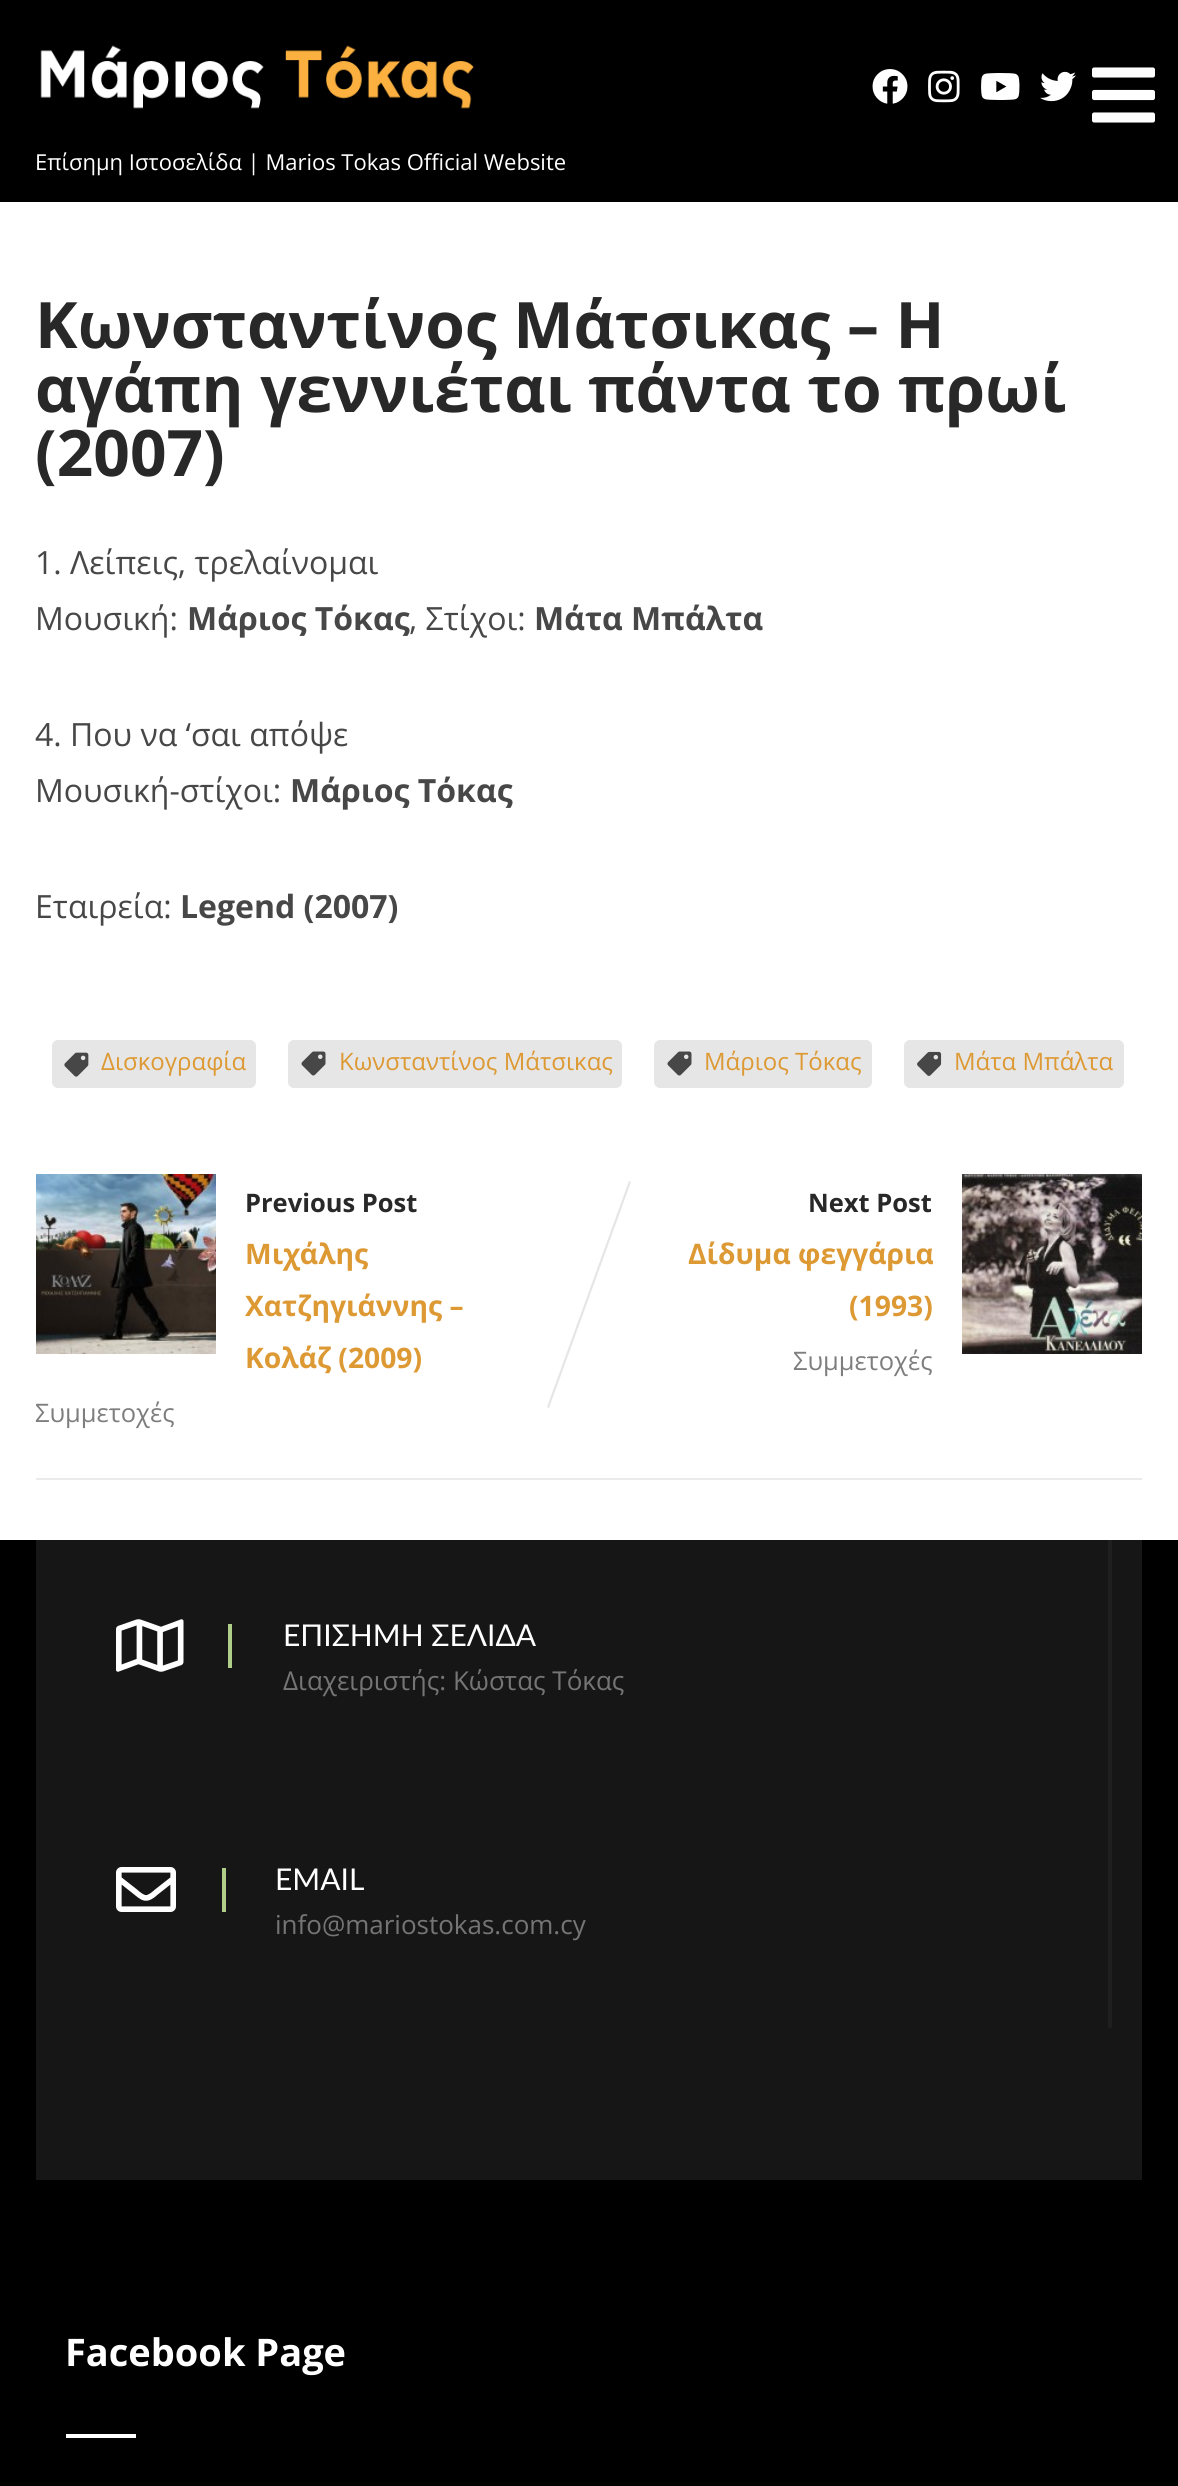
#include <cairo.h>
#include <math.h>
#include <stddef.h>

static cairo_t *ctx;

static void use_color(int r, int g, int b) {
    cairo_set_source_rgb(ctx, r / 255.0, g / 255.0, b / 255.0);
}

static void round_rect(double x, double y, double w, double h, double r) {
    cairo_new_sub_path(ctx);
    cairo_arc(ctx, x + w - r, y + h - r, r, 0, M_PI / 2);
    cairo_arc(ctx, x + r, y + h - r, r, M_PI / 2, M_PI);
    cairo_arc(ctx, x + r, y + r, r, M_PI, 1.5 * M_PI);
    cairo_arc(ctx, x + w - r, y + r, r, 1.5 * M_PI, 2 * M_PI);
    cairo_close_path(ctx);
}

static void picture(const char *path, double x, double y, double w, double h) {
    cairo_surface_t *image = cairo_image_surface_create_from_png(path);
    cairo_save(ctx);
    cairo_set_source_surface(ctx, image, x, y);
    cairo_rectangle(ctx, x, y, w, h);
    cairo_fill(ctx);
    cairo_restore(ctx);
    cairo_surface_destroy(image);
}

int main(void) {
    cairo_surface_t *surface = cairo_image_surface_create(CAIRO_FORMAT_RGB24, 1178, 2486);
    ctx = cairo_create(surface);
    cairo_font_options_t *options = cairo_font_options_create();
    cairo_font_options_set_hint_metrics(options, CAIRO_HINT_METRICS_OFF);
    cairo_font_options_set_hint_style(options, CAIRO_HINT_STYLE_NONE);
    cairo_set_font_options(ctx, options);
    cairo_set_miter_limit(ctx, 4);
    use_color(255, 255, 255);
    cairo_paint(ctx);
    use_color(0, 0, 0);
    cairo_rectangle(ctx, 0, 0, 1178, 202);
    cairo_fill(ctx);
    picture("img1.png", 872, 69, 36, 35);
    picture("img2.png", 928, 70, 32, 33);
    picture("img3.png", 981, 73, 39, 27);
    picture("img4.png", 1040, 71, 36, 31);
    picture("img5.png", 1092, 67, 63, 56);
    picture("img6.png", 40, 45, 434, 64);
    cairo_select_font_face(ctx, "Open Sans", CAIRO_FONT_SLANT_NORMAL, CAIRO_FONT_WEIGHT_NORMAL);
    cairo_set_font_size(ctx, 22);
    use_color(255, 255, 255);
    cairo_move_to(ctx, 35, 170);
    cairo_show_text(ctx, "Επίσημη Ιστοσελίδα | Marios Tokas Official Website");
    cairo_select_font_face(ctx, "Open Sans", CAIRO_FONT_SLANT_NORMAL, CAIRO_FONT_WEIGHT_BOLD);
    cairo_set_font_size(ctx, 64);
    use_color(40, 40, 40);
    cairo_move_to(ctx, 35, 348);
    cairo_show_text(ctx, "Κωνσταντίνος Μάτσικας – Η");
    cairo_move_to(ctx, 35, 412);
    cairo_show_text(ctx, "αγάπη γεννιέται πάντα το πρωί");
    cairo_move_to(ctx, 35, 476);
    cairo_show_text(ctx, "(2007)");
    cairo_select_font_face(ctx, "Open Sans", CAIRO_FONT_SLANT_NORMAL, CAIRO_FONT_WEIGHT_NORMAL);
    cairo_set_font_size(ctx, 32);
    use_color(72, 71, 71);
    cairo_move_to(ctx, 35, 574);
    cairo_show_text(ctx, "1. Λείπεις, τρελαίνομαι");
    cairo_move_to(ctx, 35, 630);
    cairo_show_text(ctx, "Μουσική:");
    cairo_select_font_face(ctx, "Open Sans", CAIRO_FONT_SLANT_NORMAL, CAIRO_FONT_WEIGHT_BOLD);
    cairo_move_to(ctx, 187, 630);
    cairo_show_text(ctx, "Μάριος Τόκας");
    cairo_select_font_face(ctx, "Open Sans", CAIRO_FONT_SLANT_NORMAL, CAIRO_FONT_WEIGHT_NORMAL);
    cairo_move_to(ctx, 409, 630);
    cairo_show_text(ctx, ", Στίχοι:");
    cairo_select_font_face(ctx, "Open Sans", CAIRO_FONT_SLANT_NORMAL, CAIRO_FONT_WEIGHT_BOLD);
    cairo_move_to(ctx, 534, 630);
    cairo_show_text(ctx, "Μάτα Μπάλτα");
    cairo_select_font_face(ctx, "Open Sans", CAIRO_FONT_SLANT_NORMAL, CAIRO_FONT_WEIGHT_NORMAL);
    cairo_move_to(ctx, 35, 746);
    cairo_show_text(ctx, "4. Που να ‘σαι απόψε");
    cairo_move_to(ctx, 35, 802);
    cairo_show_text(ctx, "Μουσική-στίχοι:");
    cairo_select_font_face(ctx, "Open Sans", CAIRO_FONT_SLANT_NORMAL, CAIRO_FONT_WEIGHT_BOLD);
    cairo_move_to(ctx, 290, 802);
    cairo_show_text(ctx, "Μάριος Τόκας");
    cairo_select_font_face(ctx, "Open Sans", CAIRO_FONT_SLANT_NORMAL, CAIRO_FONT_WEIGHT_NORMAL);
    cairo_move_to(ctx, 35, 918);
    cairo_show_text(ctx, "Εταιρεία:");
    cairo_select_font_face(ctx, "Open Sans", CAIRO_FONT_SLANT_NORMAL, CAIRO_FONT_WEIGHT_BOLD);
    cairo_move_to(ctx, 180, 918);
    cairo_show_text(ctx, "Legend (2007)");
    use_color(230, 230, 230);
    round_rect(52, 1040, 204, 48, 6);
    cairo_fill(ctx);
    picture("img7.png", 64, 1052, 25, 25);
    cairo_select_font_face(ctx, "Open Sans", CAIRO_FONT_SLANT_NORMAL, CAIRO_FONT_WEIGHT_NORMAL);
    cairo_set_font_size(ctx, 24);
    use_color(221, 153, 51);
    cairo_move_to(ctx, 101, 1070);
    cairo_show_text(ctx, "Δισκογραφία");
    use_color(230, 230, 230);
    round_rect(288, 1040, 334, 48, 6);
    cairo_fill(ctx);
    picture("img8.png", 301, 1051, 25, 25);
    use_color(221, 153, 51);
    cairo_move_to(ctx, 339, 1070);
    cairo_show_text(ctx, "Κωνσταντίνος Μάτσικας");
    use_color(230, 230, 230);
    round_rect(654, 1040, 218, 48, 6);
    cairo_fill(ctx);
    picture("img9.png", 667, 1051, 25, 25);
    use_color(221, 153, 51);
    cairo_move_to(ctx, 704, 1070);
    cairo_show_text(ctx, "Μάριος Τόκας");
    use_color(230, 230, 230);
    round_rect(904, 1040, 220, 48, 6);
    cairo_fill(ctx);
    picture("img10.png", 917, 1051, 25, 25);
    use_color(221, 153, 51);
    cairo_move_to(ctx, 954, 1070);
    cairo_show_text(ctx, "Μάτα Μπάλτα");
    use_color(235, 235, 235);
    cairo_rectangle(ctx, 36, 1478, 1106, 2);
    cairo_fill(ctx);
    picture("img11.png", 36, 1174, 180, 180);
    cairo_select_font_face(ctx, "Open Sans", CAIRO_FONT_SLANT_NORMAL, CAIRO_FONT_WEIGHT_BOLD);
    cairo_set_font_size(ctx, 25.5);
    use_color(40, 40, 40);
    cairo_move_to(ctx, 245, 1212);
    cairo_show_text(ctx, "Previous Post");
    cairo_set_font_size(ctx, 28.25);
    use_color(221, 153, 51);
    cairo_move_to(ctx, 245, 1264);
    cairo_show_text(ctx, "Μιχάλης");
    cairo_move_to(ctx, 245, 1316);
    cairo_show_text(ctx, "Χατζηγιάννης –");
    cairo_move_to(ctx, 245, 1368);
    cairo_show_text(ctx, "Κολάζ (2009)");
    cairo_select_font_face(ctx, "Open Sans", CAIRO_FONT_SLANT_NORMAL, CAIRO_FONT_WEIGHT_NORMAL);
    cairo_set_font_size(ctx, 25.5);
    use_color(126, 126, 126);
    cairo_move_to(ctx, 35, 1422);
    cairo_show_text(ctx, "Συμμετοχές");
    use_color(230, 230, 230);
    cairo_new_path(ctx);
    cairo_move_to(ctx, 629, 1181);
    cairo_line_to(ctx, 631, 1182);
    cairo_line_to(ctx, 549, 1408);
    cairo_line_to(ctx, 547, 1407);
    cairo_close_path(ctx);
    cairo_fill(ctx);
    cairo_select_font_face(ctx, "Open Sans", CAIRO_FONT_SLANT_NORMAL, CAIRO_FONT_WEIGHT_BOLD);
    use_color(40, 40, 40);
    cairo_move_to(ctx, 808, 1212);
    cairo_show_text(ctx, "Next Post");
    picture("img12.png", 962, 1174, 180, 180);
    cairo_set_font_size(ctx, 28.25);
    use_color(221, 153, 51);
    cairo_move_to(ctx, 688, 1264);
    cairo_show_text(ctx, "Δίδυμα φεγγάρια");
    cairo_move_to(ctx, 849, 1316);
    cairo_show_text(ctx, "(1993)");
    cairo_select_font_face(ctx, "Open Sans", CAIRO_FONT_SLANT_NORMAL, CAIRO_FONT_WEIGHT_NORMAL);
    cairo_set_font_size(ctx, 25.5);
    use_color(126, 126, 126);
    cairo_move_to(ctx, 793, 1370);
    cairo_show_text(ctx, "Συμμετοχές");
    use_color(0, 0, 0);
    cairo_rectangle(ctx, 0, 1540, 1178, 946);
    cairo_fill(ctx);
    use_color(22, 22, 22);
    cairo_rectangle(ctx, 36, 1540, 1106, 640);
    cairo_fill(ctx);
    use_color(31, 31, 31);
    cairo_rectangle(ctx, 1108, 1540, 4, 488);
    cairo_fill(ctx);
    picture("img13.png", 116, 1619, 68, 53);
    use_color(175, 206, 138);
    cairo_rectangle(ctx, 228, 1624, 4, 44);
    cairo_fill(ctx);
    cairo_select_font_face(ctx, "Lato", CAIRO_FONT_SLANT_NORMAL, CAIRO_FONT_WEIGHT_NORMAL);
    cairo_set_font_size(ctx, 30);
    use_color(255, 255, 255);
    cairo_move_to(ctx, 283, 1646);
    cairo_show_text(ctx, "ΕΠΙΣΗΜΗ ΣΕΛΙΔΑ");
    cairo_select_font_face(ctx, "Open Sans", CAIRO_FONT_SLANT_NORMAL, CAIRO_FONT_WEIGHT_NORMAL);
    cairo_set_font_size(ctx, 26);
    use_color(117, 117, 117);
    cairo_move_to(ctx, 283, 1690);
    cairo_show_text(ctx, "Διαχειριστής: Κώστας Τόκας");
    picture("img14.png", 116, 1867, 60, 45);
    use_color(175, 206, 138);
    cairo_rectangle(ctx, 222, 1868, 4, 44);
    cairo_fill(ctx);
    cairo_select_font_face(ctx, "Lato", CAIRO_FONT_SLANT_NORMAL, CAIRO_FONT_WEIGHT_NORMAL);
    cairo_set_font_size(ctx, 30);
    use_color(255, 255, 255);
    cairo_move_to(ctx, 275, 1890);
    cairo_show_text(ctx, "EMAIL");
    cairo_select_font_face(ctx, "Open Sans", CAIRO_FONT_SLANT_NORMAL, CAIRO_FONT_WEIGHT_NORMAL);
    cairo_set_font_size(ctx, 26);
    use_color(117, 117, 117);
    cairo_move_to(ctx, 275, 1934);
    cairo_show_text(ctx, "info@mariostokas.com.cy");
    cairo_select_font_face(ctx, "Open Sans", CAIRO_FONT_SLANT_NORMAL, CAIRO_FONT_WEIGHT_BOLD);
    cairo_set_font_size(ctx, 38);
    use_color(255, 255, 255);
    cairo_move_to(ctx, 65, 2366);
    cairo_show_text(ctx, "Facebook Page");
    cairo_rectangle(ctx, 66, 2434, 70, 4);
    cairo_fill(ctx);
    cairo_surface_write_to_png(surface, "result.png");
    cairo_font_options_destroy(options);
    cairo_destroy(ctx);
    cairo_surface_destroy(surface);
    return 0;
}
